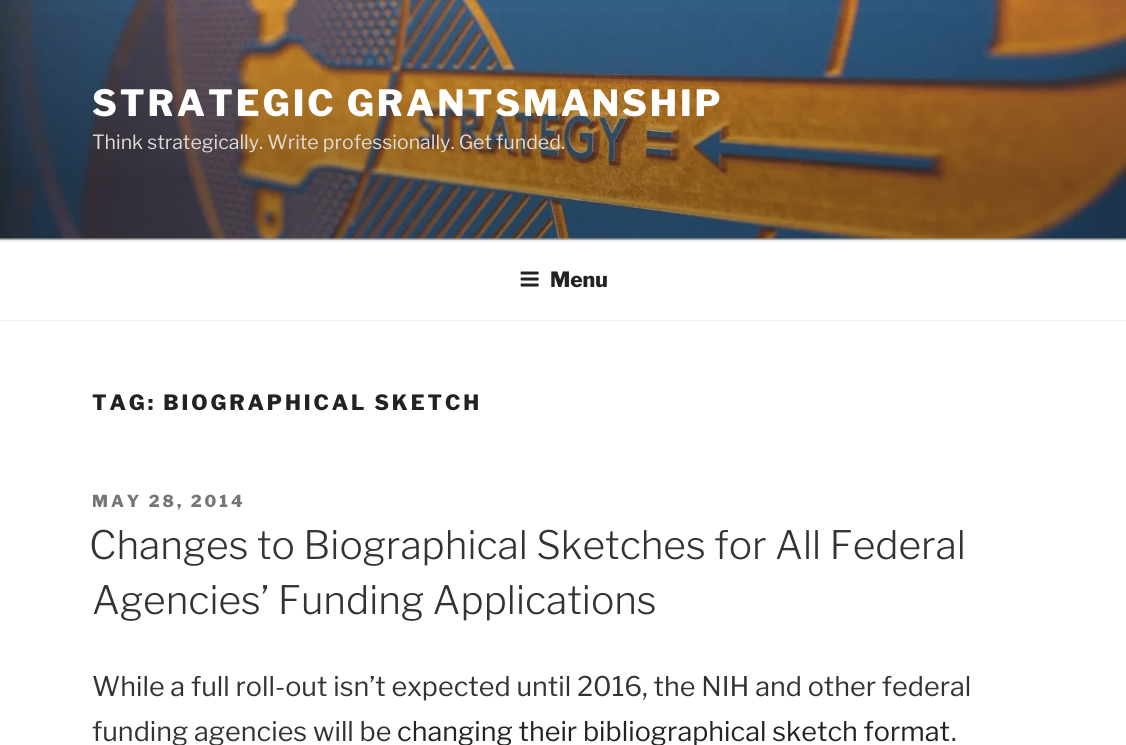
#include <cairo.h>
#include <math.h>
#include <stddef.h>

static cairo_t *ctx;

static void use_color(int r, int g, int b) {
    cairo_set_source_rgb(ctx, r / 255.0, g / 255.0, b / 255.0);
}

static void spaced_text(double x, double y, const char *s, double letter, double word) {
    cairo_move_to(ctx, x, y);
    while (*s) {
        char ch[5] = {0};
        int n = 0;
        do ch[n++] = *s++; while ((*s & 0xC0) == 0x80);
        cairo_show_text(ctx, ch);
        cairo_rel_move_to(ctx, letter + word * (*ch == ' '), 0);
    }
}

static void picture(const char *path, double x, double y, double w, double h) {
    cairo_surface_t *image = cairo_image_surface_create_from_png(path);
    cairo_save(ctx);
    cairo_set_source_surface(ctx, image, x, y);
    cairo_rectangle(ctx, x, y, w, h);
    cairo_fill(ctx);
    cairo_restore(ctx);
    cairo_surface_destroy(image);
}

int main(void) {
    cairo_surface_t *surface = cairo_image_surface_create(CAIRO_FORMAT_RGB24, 1126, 745);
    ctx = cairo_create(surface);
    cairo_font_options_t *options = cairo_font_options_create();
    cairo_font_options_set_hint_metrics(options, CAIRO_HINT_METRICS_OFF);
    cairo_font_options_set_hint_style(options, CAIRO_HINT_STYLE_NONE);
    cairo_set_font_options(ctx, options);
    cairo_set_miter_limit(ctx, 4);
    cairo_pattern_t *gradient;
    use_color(250, 250, 250);
    cairo_paint(ctx);
    picture("img1.png", 0, 0, 1126, 239);
    gradient = cairo_pattern_create_linear(563, 0, 563, 240);
    cairo_pattern_add_color_stop_rgba(gradient, 0, 0, 0, 0, 0);
    cairo_pattern_add_color_stop_rgba(gradient, 0.75, 0, 0, 0, 0.3);
    cairo_pattern_add_color_stop_rgba(gradient, 1, 0, 0, 0, 0.3);
    cairo_set_source(ctx, gradient);
    cairo_pattern_destroy(gradient);
    cairo_rectangle(ctx, 0, 13, 1126, 227);
    cairo_fill(ctx);
    cairo_select_font_face(ctx, "Libre Franklin Thin", CAIRO_FONT_SLANT_NORMAL, CAIRO_FONT_WEIGHT_NORMAL);
    cairo_set_font_size(ctx, 36);
    use_color(255, 255, 255);
    spaced_text(92, 116, "STRATEGIC GRANTSMANSHIP", 2.9, 0);
    cairo_select_font_face(ctx, "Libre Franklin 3 Thin", CAIRO_FONT_SLANT_NORMAL, CAIRO_FONT_WEIGHT_NORMAL);
    cairo_set_font_size(ctx, 19.5);
    use_color(226, 220, 214);
    cairo_move_to(ctx, 92, 149);
    cairo_show_text(ctx, "Think strategically. Write professionally. Get funded.");
    use_color(255, 255, 255);
    cairo_rectangle(ctx, 0, 242, 1126, 78);
    cairo_fill(ctx);
    use_color(238, 238, 238);
    cairo_rectangle(ctx, 0, 240, 1126, 2);
    cairo_fill(ctx);
    cairo_rectangle(ctx, 0, 320, 1126, 1);
    cairo_fill(ctx);
    picture("img2.png", 520, 271, 19, 16);
    cairo_select_font_face(ctx, "Libre Franklin Thin", CAIRO_FONT_SLANT_NORMAL, CAIRO_FONT_WEIGHT_NORMAL);
    cairo_set_font_size(ctx, 21);
    use_color(34, 34, 34);
    cairo_move_to(ctx, 550, 287);
    cairo_show_text(ctx, "Menu");
    use_color(255, 255, 255);
    cairo_rectangle(ctx, 0, 321, 1126, 424);
    cairo_fill(ctx);
    use_color(34, 34, 34);
    spaced_text(92, 410, "TAG: BIOGRAPHICAL SKETCH", 2.9, 0);
    cairo_set_font_size(ctx, 16.5);
    use_color(118, 118, 118);
    spaced_text(92, 507, "MAY 28, 2014", 3, 0);
    cairo_select_font_face(ctx, "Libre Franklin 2 Thin", CAIRO_FONT_SLANT_NORMAL, CAIRO_FONT_WEIGHT_NORMAL);
    cairo_set_font_size(ctx, 39);
    use_color(51, 51, 51);
    cairo_move_to(ctx, 89, 559);
    cairo_show_text(ctx, "Changes to Biographical Sketches for All Federal");
    cairo_move_to(ctx, 92, 614);
    cairo_show_text(ctx, "Agencies’ Funding Applications");
    cairo_select_font_face(ctx, "Libre Franklin 3 Thin", CAIRO_FONT_SLANT_NORMAL, CAIRO_FONT_WEIGHT_NORMAL);
    cairo_set_font_size(ctx, 27);
    cairo_move_to(ctx, 92, 696);
    cairo_show_text(ctx, "While a full roll-out isn’t expected until 2016, the NIH and other federal");
    cairo_move_to(ctx, 92, 741);
    cairo_show_text(ctx, "funding agencies will be");
    use_color(34, 34, 34);
    cairo_move_to(ctx, 397, 741);
    cairo_show_text(ctx, "changing their bibliographical sketch format");
    use_color(51, 51, 51);
    cairo_move_to(ctx, 951, 741);
    cairo_show_text(ctx, ".");
    cairo_surface_write_to_png(surface, "result.png");
    cairo_font_options_destroy(options);
    cairo_destroy(ctx);
    cairo_surface_destroy(surface);
    return 0;
}
